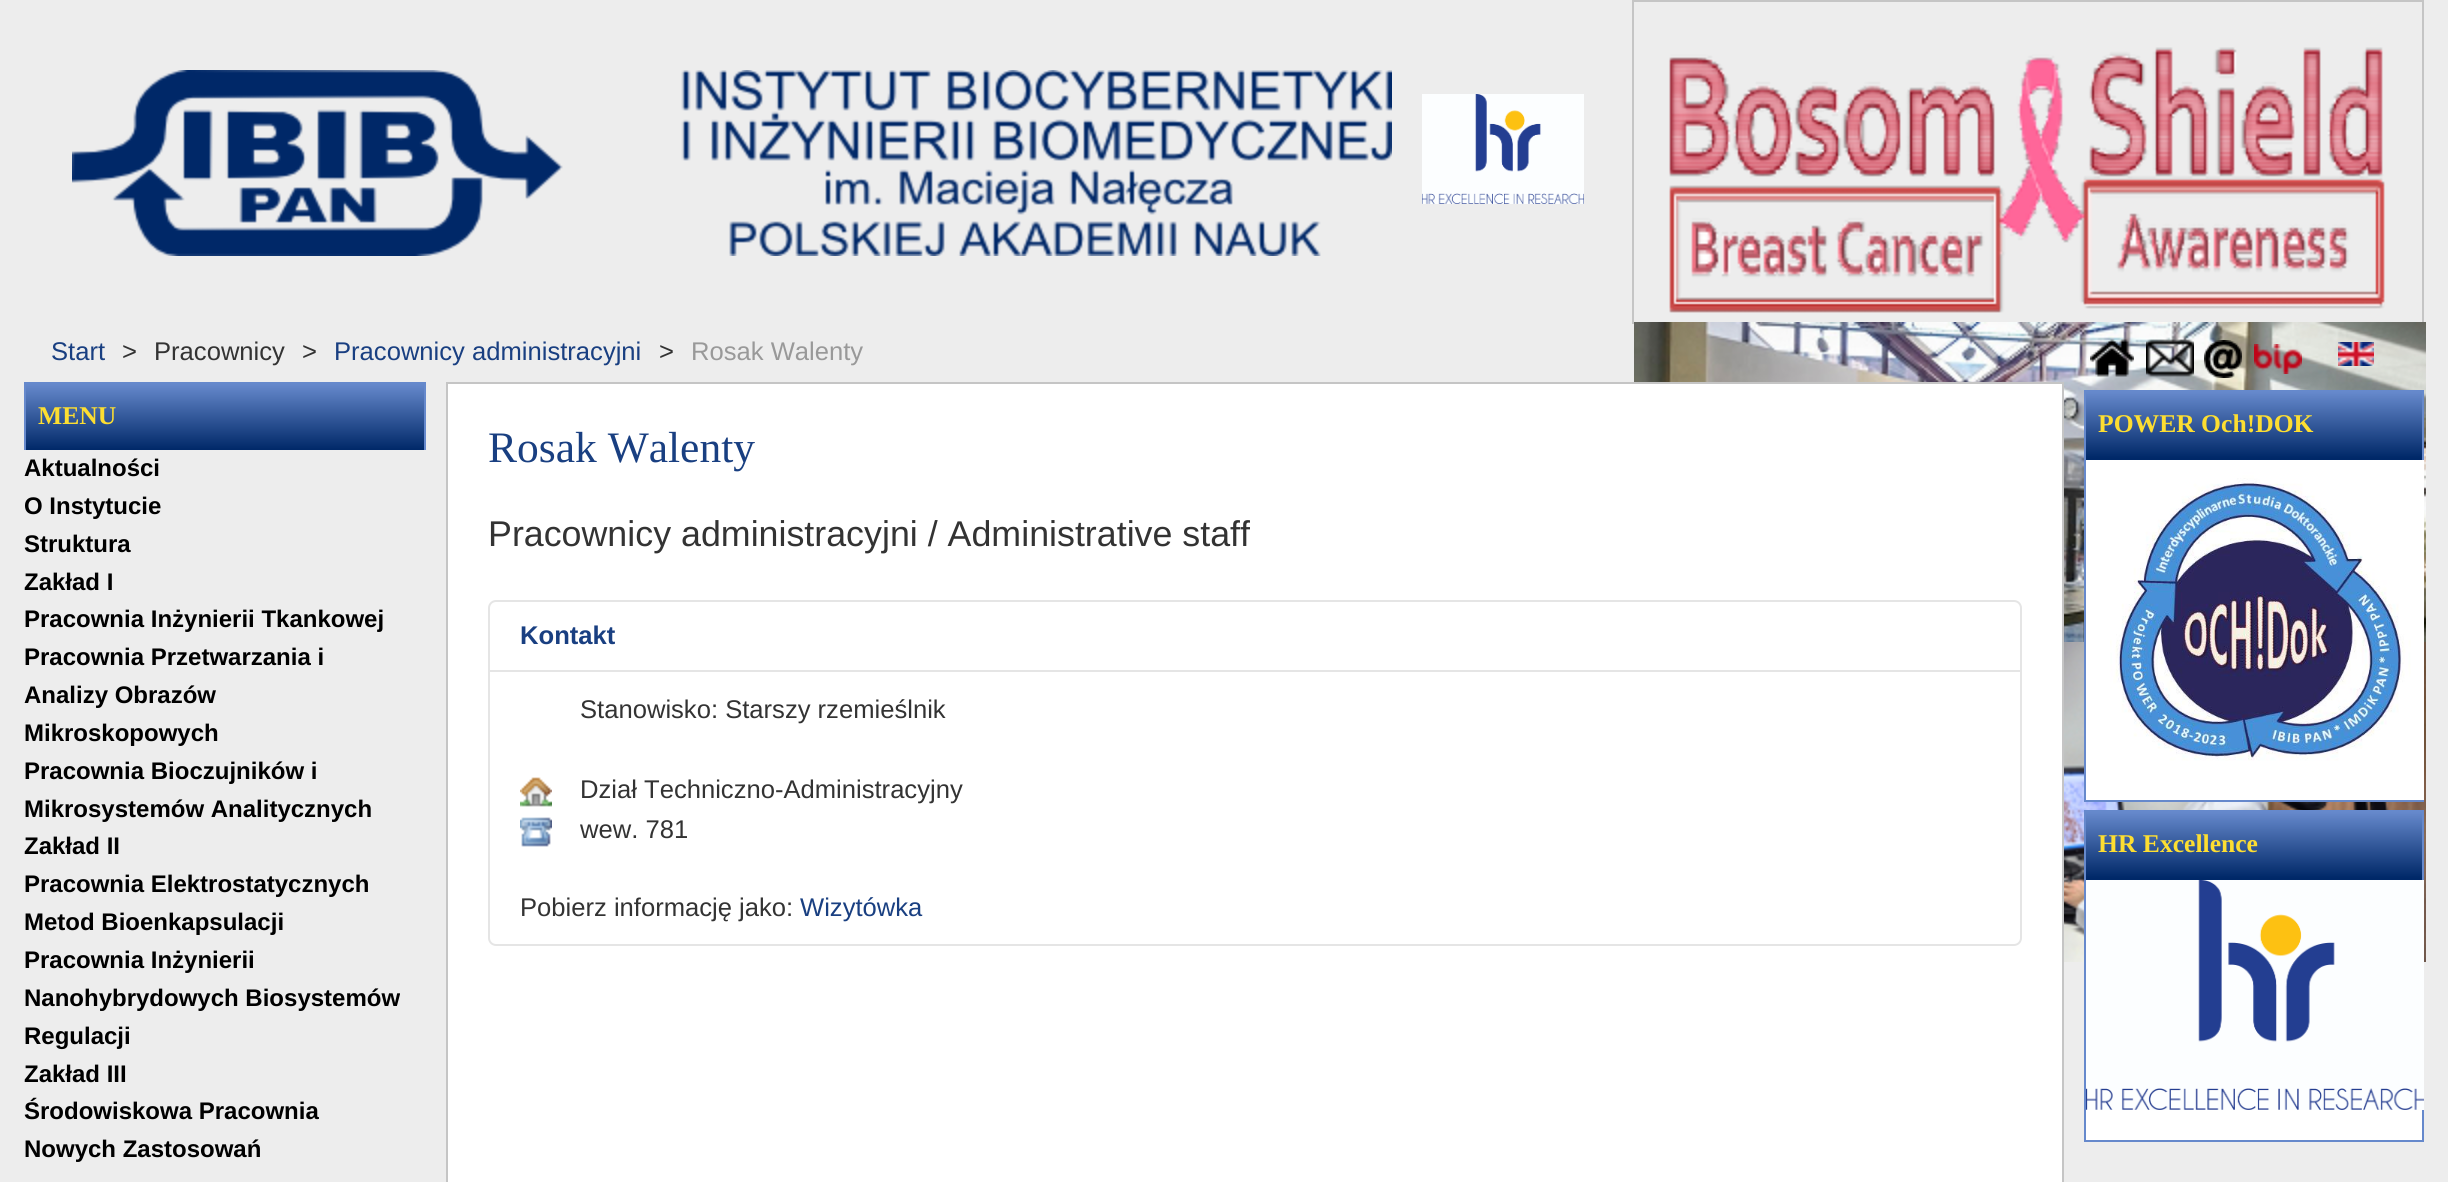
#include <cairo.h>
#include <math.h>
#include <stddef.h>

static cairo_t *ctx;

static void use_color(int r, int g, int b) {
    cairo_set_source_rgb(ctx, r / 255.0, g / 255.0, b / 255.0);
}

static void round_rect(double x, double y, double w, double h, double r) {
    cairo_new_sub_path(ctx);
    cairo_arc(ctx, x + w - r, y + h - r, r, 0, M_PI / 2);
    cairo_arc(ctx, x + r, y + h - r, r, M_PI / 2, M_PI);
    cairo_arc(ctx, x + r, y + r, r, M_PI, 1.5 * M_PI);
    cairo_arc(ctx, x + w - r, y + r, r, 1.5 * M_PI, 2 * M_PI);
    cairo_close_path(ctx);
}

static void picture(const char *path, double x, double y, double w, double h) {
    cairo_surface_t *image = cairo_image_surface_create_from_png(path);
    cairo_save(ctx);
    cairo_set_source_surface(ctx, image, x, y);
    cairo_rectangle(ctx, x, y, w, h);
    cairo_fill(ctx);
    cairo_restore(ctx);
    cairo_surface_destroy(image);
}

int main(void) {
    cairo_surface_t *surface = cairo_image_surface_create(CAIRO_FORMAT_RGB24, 2448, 1182);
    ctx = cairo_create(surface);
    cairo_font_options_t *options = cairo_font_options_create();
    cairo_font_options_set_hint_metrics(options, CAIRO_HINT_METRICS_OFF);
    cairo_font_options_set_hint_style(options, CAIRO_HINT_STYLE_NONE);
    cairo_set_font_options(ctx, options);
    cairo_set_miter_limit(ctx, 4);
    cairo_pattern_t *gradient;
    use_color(237, 237, 237);
    cairo_paint(ctx);
    picture("img1.png", 72, 70, 1320, 186);
    picture("img2.png", 1422, 94, 162, 110);
    cairo_rectangle(ctx, 1633, 1, 790, 322);
    use_color(197, 197, 197);
    cairo_stroke(ctx);
    picture("img3.png", 1669, 47, 716, 266);
    picture("img4.png", 1634, 322, 792, 320);
    picture("img5.png", 2064, 642, 362, 320);
    cairo_select_font_face(ctx, "Liberation Sans", CAIRO_FONT_SLANT_NORMAL, CAIRO_FONT_WEIGHT_NORMAL);
    cairo_set_font_size(ctx, 25.6);
    use_color(25, 63, 129);
    cairo_move_to(ctx, 51, 360);
    cairo_show_text(ctx, "Start");
    use_color(51, 51, 51);
    cairo_move_to(ctx, 122, 360);
    cairo_show_text(ctx, ">");
    cairo_move_to(ctx, 154, 360);
    cairo_show_text(ctx, "Pracownicy");
    cairo_move_to(ctx, 302, 360);
    cairo_show_text(ctx, ">");
    use_color(25, 63, 129);
    cairo_move_to(ctx, 334, 360);
    cairo_show_text(ctx, "Pracownicy administracyjni");
    use_color(51, 51, 51);
    cairo_move_to(ctx, 659, 360);
    cairo_show_text(ctx, ">");
    use_color(153, 153, 153);
    cairo_move_to(ctx, 691, 360);
    cairo_show_text(ctx, "Rosak Walenty");
    picture("img6.png", 2090, 339, 44, 38);
    picture("img7.png", 2146, 339, 48, 38);
    picture("img8.png", 2204, 340, 38, 38);
    picture("img9.png", 2254, 344, 48, 30);
    picture("img10.png", 2338, 342, 36, 24);
    gradient = cairo_pattern_create_linear(225, 384, 225, 450);
    cairo_pattern_add_color_stop_rgba(gradient, 0, 0.4, 0.537, 0.8, 1);
    cairo_pattern_add_color_stop_rgba(gradient, 1, 0, 0.157, 0.408, 1);
    cairo_set_source(ctx, gradient);
    cairo_pattern_destroy(gradient);
    cairo_rectangle(ctx, 26, 384, 398, 66);
    cairo_fill(ctx);
    use_color(102, 137, 204);
    cairo_rectangle(ctx, 24, 382, 402, 2);
    cairo_fill(ctx);
    cairo_rectangle(ctx, 424, 382, 2, 68);
    cairo_fill(ctx);
    cairo_rectangle(ctx, 24, 382, 2, 68);
    cairo_fill(ctx);
    cairo_select_font_face(ctx, "Liberation Serif", CAIRO_FONT_SLANT_NORMAL, CAIRO_FONT_WEIGHT_BOLD);
    use_color(253, 222, 49);
    cairo_move_to(ctx, 38, 424);
    cairo_show_text(ctx, "MENU");
    cairo_select_font_face(ctx, "Liberation Sans", CAIRO_FONT_SLANT_NORMAL, CAIRO_FONT_WEIGHT_BOLD);
    cairo_set_font_size(ctx, 24);
    use_color(0, 0, 0);
    cairo_move_to(ctx, 24, 476);
    cairo_show_text(ctx, "Aktualności");
    cairo_move_to(ctx, 24, 514);
    cairo_show_text(ctx, "O Instytucie");
    cairo_move_to(ctx, 24, 552);
    cairo_show_text(ctx, "Struktura");
    cairo_move_to(ctx, 24, 590);
    cairo_show_text(ctx, "Zakład I");
    cairo_move_to(ctx, 24, 627);
    cairo_show_text(ctx, "Pracownia Inżynierii Tkankowej");
    cairo_move_to(ctx, 24, 665);
    cairo_show_text(ctx, "Pracownia Przetwarzania i");
    cairo_move_to(ctx, 24, 703);
    cairo_show_text(ctx, "Analizy Obrazów");
    cairo_move_to(ctx, 24, 741);
    cairo_show_text(ctx, "Mikroskopowych");
    cairo_move_to(ctx, 24, 779);
    cairo_show_text(ctx, "Pracownia Bioczujników i");
    cairo_move_to(ctx, 24, 817);
    cairo_show_text(ctx, "Mikrosystemów Analitycznych");
    cairo_move_to(ctx, 24, 854);
    cairo_show_text(ctx, "Zakład II");
    cairo_move_to(ctx, 24, 892);
    cairo_show_text(ctx, "Pracownia Elektrostatycznych");
    cairo_move_to(ctx, 24, 930);
    cairo_show_text(ctx, "Metod Bioenkapsulacji");
    cairo_move_to(ctx, 24, 968);
    cairo_show_text(ctx, "Pracownia Inżynierii");
    cairo_move_to(ctx, 24, 1006);
    cairo_show_text(ctx, "Nanohybrydowych Biosystemów");
    cairo_move_to(ctx, 24, 1044);
    cairo_show_text(ctx, "Regulacji");
    cairo_move_to(ctx, 24, 1082);
    cairo_show_text(ctx, "Zakład III");
    cairo_move_to(ctx, 24, 1119);
    cairo_show_text(ctx, "Środowiskowa Pracownia");
    cairo_move_to(ctx, 24, 1157);
    cairo_show_text(ctx, "Nowych Zastosowań");
    use_color(255, 255, 255);
    cairo_rectangle(ctx, 447, 383, 1616, 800);
    cairo_fill_preserve(ctx);
    use_color(197, 197, 197);
    cairo_stroke(ctx);
    cairo_select_font_face(ctx, "Liberation Serif", CAIRO_FONT_SLANT_NORMAL, CAIRO_FONT_WEIGHT_NORMAL);
    cairo_set_font_size(ctx, 43.5);
    use_color(25, 63, 129);
    cairo_move_to(ctx, 488, 462);
    cairo_show_text(ctx, "Rosak Walenty");
    cairo_select_font_face(ctx, "Liberation Sans", CAIRO_FONT_SLANT_NORMAL, CAIRO_FONT_WEIGHT_NORMAL);
    cairo_set_font_size(ctx, 35.8);
    use_color(51, 51, 51);
    cairo_move_to(ctx, 488, 546);
    cairo_show_text(ctx, "Pracownicy administracyjni / Administrative staff");
    round_rect(489, 601, 1532, 344, 7);
    use_color(229, 229, 229);
    cairo_stroke(ctx);
    cairo_select_font_face(ctx, "Liberation Sans", CAIRO_FONT_SLANT_NORMAL, CAIRO_FONT_WEIGHT_BOLD);
    cairo_set_font_size(ctx, 25.6);
    use_color(25, 63, 129);
    cairo_move_to(ctx, 520, 644);
    cairo_show_text(ctx, "Kontakt");
    use_color(229, 229, 229);
    cairo_rectangle(ctx, 490, 670, 1530, 2);
    cairo_fill(ctx);
    cairo_select_font_face(ctx, "Liberation Sans", CAIRO_FONT_SLANT_NORMAL, CAIRO_FONT_WEIGHT_NORMAL);
    use_color(51, 51, 51);
    cairo_move_to(ctx, 580, 718);
    cairo_show_text(ctx, "Stanowisko: Starszy rzemieślnik");
    picture("img11.png", 520, 777, 32, 30);
    cairo_move_to(ctx, 580, 798);
    cairo_show_text(ctx, "Dział Techniczno-Administracyjny");
    picture("img12.png", 520, 817, 32, 30);
    cairo_move_to(ctx, 580, 838);
    cairo_show_text(ctx, "wew. 781");
    cairo_move_to(ctx, 520, 916);
    cairo_show_text(ctx, "Pobierz informację jako:");
    use_color(25, 63, 129);
    cairo_move_to(ctx, 800, 916);
    cairo_show_text(ctx, "Wizytówka");
    use_color(255, 255, 255);
    cairo_rectangle(ctx, 2086, 460, 24, 340);
    cairo_fill(ctx);
    cairo_rectangle(ctx, 2085, 391, 338, 410);
    use_color(102, 137, 204);
    cairo_stroke(ctx);
    gradient = cairo_pattern_create_linear(2254, 392, 2254, 458);
    cairo_pattern_add_color_stop_rgba(gradient, 0, 0.4, 0.537, 0.8, 1);
    cairo_pattern_add_color_stop_rgba(gradient, 1, 0, 0.157, 0.408, 1);
    cairo_set_source(ctx, gradient);
    cairo_pattern_destroy(gradient);
    cairo_rectangle(ctx, 2086, 392, 336, 66);
    cairo_fill(ctx);
    use_color(0, 40, 104);
    cairo_rectangle(ctx, 2086, 458, 336, 2);
    cairo_fill(ctx);
    cairo_select_font_face(ctx, "Liberation Serif", CAIRO_FONT_SLANT_NORMAL, CAIRO_FONT_WEIGHT_BOLD);
    use_color(253, 222, 49);
    cairo_move_to(ctx, 2098, 432);
    cairo_show_text(ctx, "POWER Och!DOK");
    picture("img13.png", 2110, 460, 314, 340);
    use_color(255, 255, 255);
    cairo_rectangle(ctx, 2086, 1110, 336, 30);
    cairo_fill(ctx);
    cairo_rectangle(ctx, 2085, 811, 338, 330);
    use_color(102, 137, 204);
    cairo_stroke(ctx);
    gradient = cairo_pattern_create_linear(2254, 812, 2254, 878);
    cairo_pattern_add_color_stop_rgba(gradient, 0, 0.4, 0.537, 0.8, 1);
    cairo_pattern_add_color_stop_rgba(gradient, 1, 0, 0.157, 0.408, 1);
    cairo_set_source(ctx, gradient);
    cairo_pattern_destroy(gradient);
    cairo_rectangle(ctx, 2086, 812, 336, 66);
    cairo_fill(ctx);
    use_color(0, 40, 104);
    cairo_rectangle(ctx, 2086, 878, 336, 2);
    cairo_fill(ctx);
    use_color(253, 222, 49);
    cairo_move_to(ctx, 2098, 852);
    cairo_show_text(ctx, "HR Excellence");
    picture("img14.png", 2086, 880, 338, 230);
    cairo_surface_write_to_png(surface, "result.png");
    cairo_font_options_destroy(options);
    cairo_destroy(ctx);
    cairo_surface_destroy(surface);
    return 0;
}
